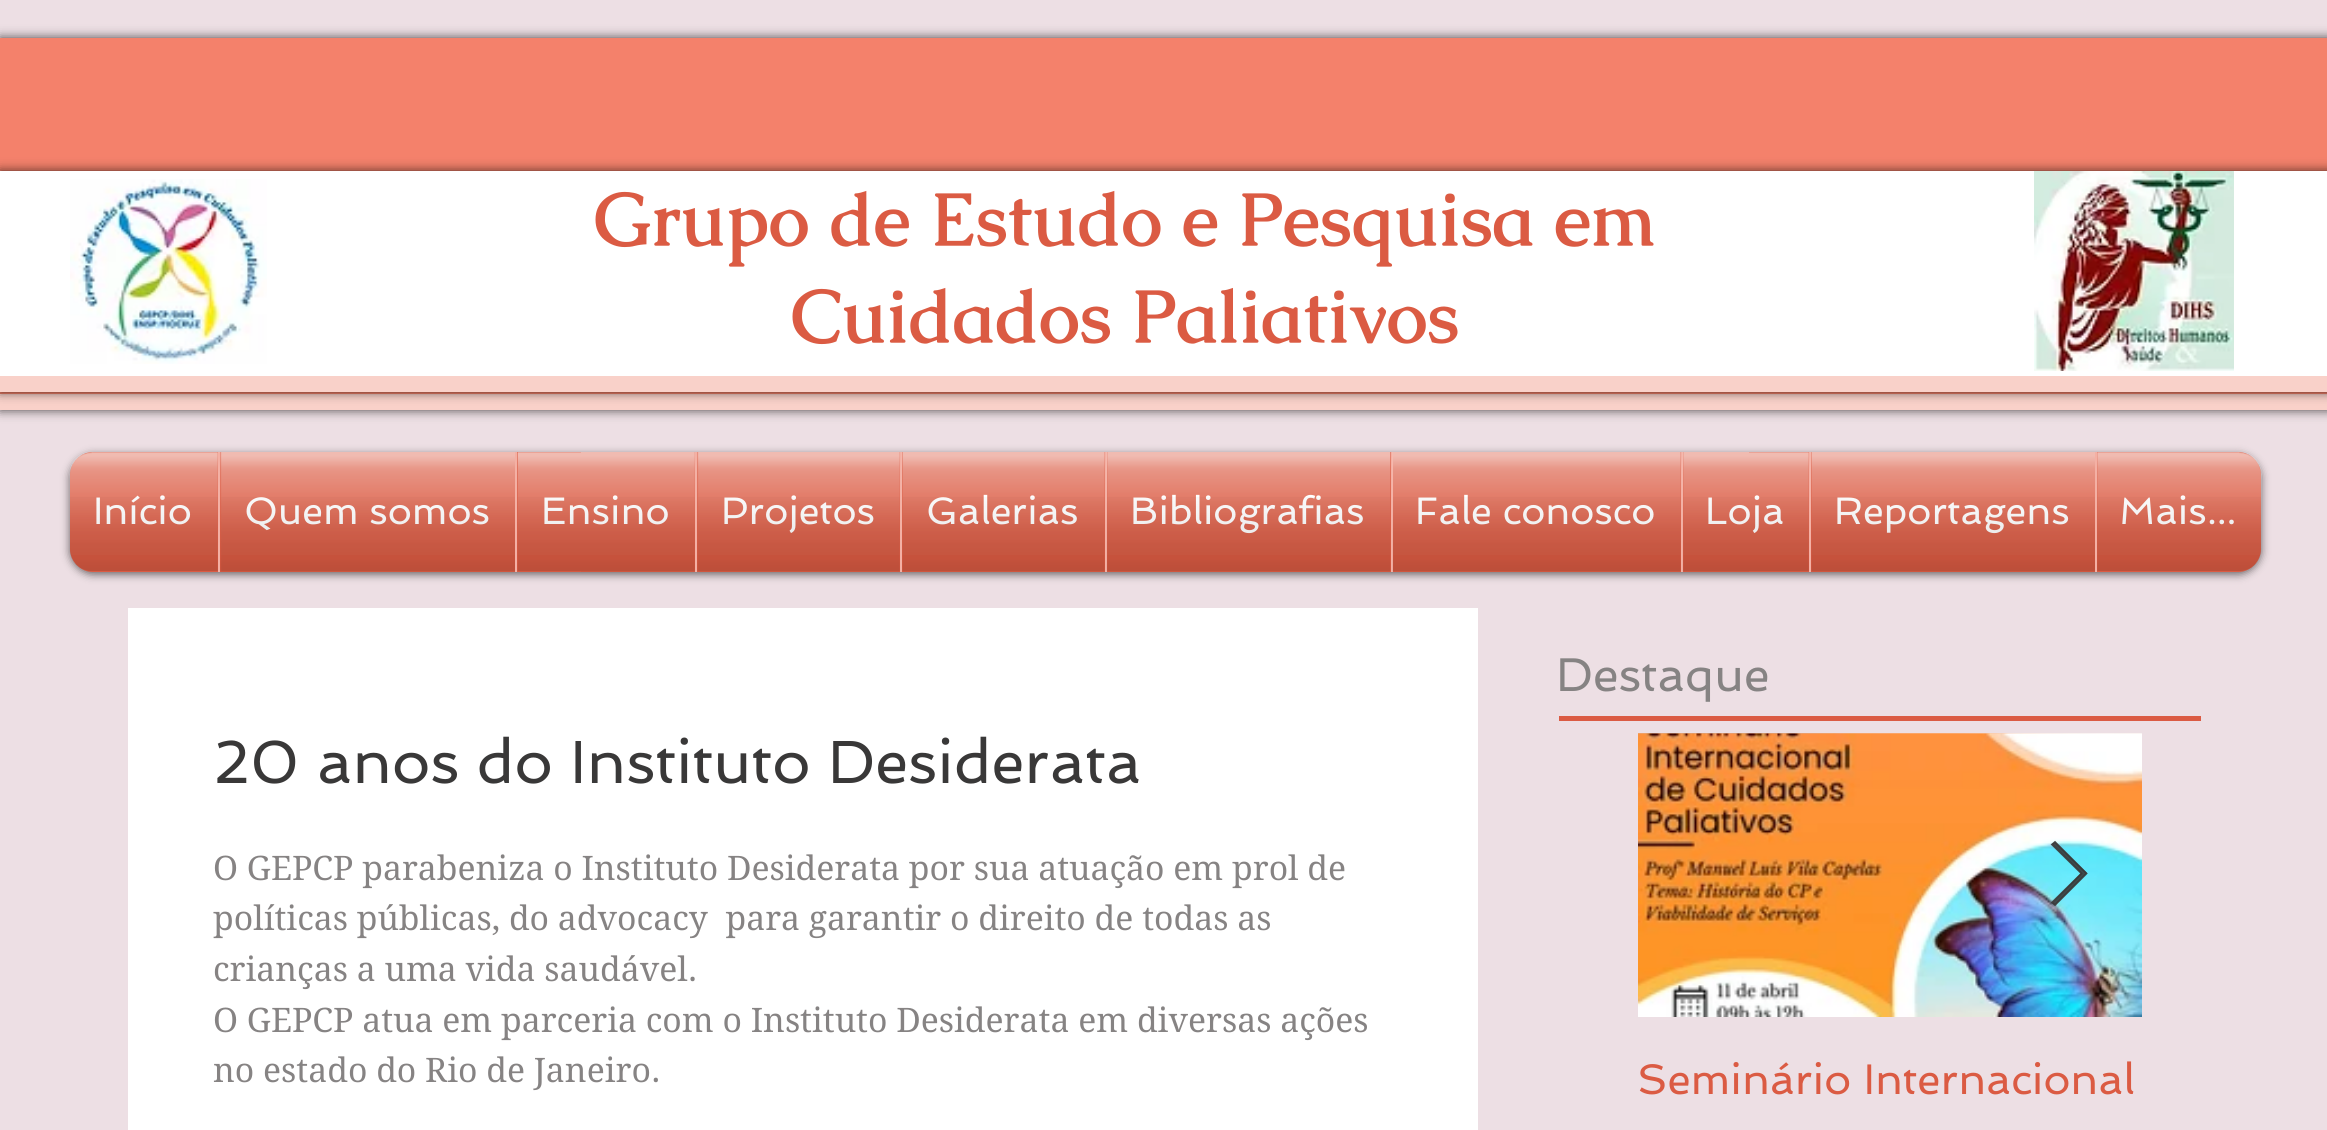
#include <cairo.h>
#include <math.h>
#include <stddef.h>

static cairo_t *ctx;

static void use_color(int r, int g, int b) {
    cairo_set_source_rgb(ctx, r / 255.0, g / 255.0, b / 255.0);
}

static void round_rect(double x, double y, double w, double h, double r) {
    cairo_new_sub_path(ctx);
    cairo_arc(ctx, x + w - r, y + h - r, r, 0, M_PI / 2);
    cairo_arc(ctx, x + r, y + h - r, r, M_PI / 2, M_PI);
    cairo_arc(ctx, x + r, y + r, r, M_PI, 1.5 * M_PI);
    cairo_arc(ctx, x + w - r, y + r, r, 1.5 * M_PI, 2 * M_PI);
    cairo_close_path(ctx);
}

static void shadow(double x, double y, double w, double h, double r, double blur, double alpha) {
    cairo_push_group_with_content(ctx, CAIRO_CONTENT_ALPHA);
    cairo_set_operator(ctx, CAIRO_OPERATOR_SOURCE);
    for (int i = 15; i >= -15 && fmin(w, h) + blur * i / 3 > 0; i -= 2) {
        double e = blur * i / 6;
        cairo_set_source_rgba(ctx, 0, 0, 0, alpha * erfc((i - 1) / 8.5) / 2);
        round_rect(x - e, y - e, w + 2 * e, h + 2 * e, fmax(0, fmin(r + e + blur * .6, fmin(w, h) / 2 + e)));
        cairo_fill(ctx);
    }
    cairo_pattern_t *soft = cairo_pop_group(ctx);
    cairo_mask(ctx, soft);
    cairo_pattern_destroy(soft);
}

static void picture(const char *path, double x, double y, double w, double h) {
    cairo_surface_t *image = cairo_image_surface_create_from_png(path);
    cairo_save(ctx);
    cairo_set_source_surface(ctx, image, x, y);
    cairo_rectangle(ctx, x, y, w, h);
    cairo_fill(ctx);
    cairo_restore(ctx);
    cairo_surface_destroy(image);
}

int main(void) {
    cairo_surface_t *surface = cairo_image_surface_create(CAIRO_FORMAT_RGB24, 2327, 1130);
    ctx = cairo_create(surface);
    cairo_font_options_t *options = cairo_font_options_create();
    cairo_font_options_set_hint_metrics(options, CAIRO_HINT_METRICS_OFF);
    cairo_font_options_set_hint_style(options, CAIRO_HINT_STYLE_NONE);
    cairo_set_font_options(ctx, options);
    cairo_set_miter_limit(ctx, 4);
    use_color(237, 223, 228);
    cairo_paint(ctx);
    use_color(0, 0, 0);
    shadow(0, 38, 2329, 372, 0, 5.5, 0.7);
    use_color(244, 129, 107);
    cairo_rectangle(ctx, 0, 38, 2327, 356);
    cairo_fill(ctx);
    use_color(249, 209, 201);
    cairo_rectangle(ctx, 0, 394, 2327, 16);
    cairo_fill(ctx);
    use_color(0, 0, 0);
    shadow(0, 171, 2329, 221, 0, 5.5, 0.7);
    use_color(255, 255, 255);
    cairo_rectangle(ctx, 0, 171, 2327, 205);
    cairo_fill(ctx);
    use_color(249, 209, 201);
    cairo_rectangle(ctx, 0, 376, 2327, 16);
    cairo_fill(ctx);
    picture("img1.png", 70, 179, 197, 185);
    cairo_select_font_face(ctx, "Caudex", CAIRO_FONT_SLANT_NORMAL, CAIRO_FONT_WEIGHT_BOLD);
    cairo_set_font_size(ctx, 74.25);
    use_color(219, 91, 67);
    cairo_move_to(ctx, 594, 245);
    cairo_show_text(ctx, "Grupo de Estudo e Pesquisa em");
    cairo_move_to(ctx, 791, 342);
    cairo_show_text(ctx, "Cuidados Paliativos");
    picture("img2.png", 2034, 171, 200, 200);
    use_color(0, 0, 0);
    shadow(70, 455, 2191, 119, 23, 4.5, 0.6);
    picture("img3.png", 69, 452, 2193, 98);
    picture("img4.png", 70, 549, 2191, 22);
    use_color(219, 91, 67);
    cairo_new_path(ctx);
    cairo_move_to(ctx, 93, 452);
    cairo_line_to(ctx, 218, 452);
    cairo_line_to(ctx, 218, 572);
    cairo_line_to(ctx, 93, 572);
    cairo_curve_to(ctx, 80.5, 572, 70, 561.5, 70, 549);
    cairo_line_to(ctx, 70, 475);
    cairo_curve_to(ctx, 70, 462.5, 80.5, 452, 93, 452);
    cairo_close_path(ctx);
    cairo_fill(ctx);
    cairo_select_font_face(ctx, "Spinnaker", CAIRO_FONT_SLANT_NORMAL, CAIRO_FONT_WEIGHT_NORMAL);
    cairo_set_font_size(ctx, 38.25);
    use_color(255, 255, 255);
    cairo_move_to(ctx, 93, 524);
    cairo_show_text(ctx, "Início");
    picture("img5.png", 70, 452, 148, 103);
    picture("img6.png", 70, 497, 148, 74);
    use_color(219, 91, 67);
    cairo_rectangle(ctx, 220, 452, 295, 120);
    cairo_fill(ctx);
    use_color(244, 176, 164);
    cairo_rectangle(ctx, 218, 452, 2, 120);
    cairo_fill(ctx);
    use_color(255, 255, 255);
    cairo_move_to(ctx, 244, 524);
    cairo_show_text(ctx, "Quem somos");
    picture("img7.png", 220, 452, 295, 103);
    picture("img8.png", 220, 497, 295, 75);
    use_color(219, 91, 67);
    cairo_rectangle(ctx, 517, 452, 178, 120);
    cairo_fill(ctx);
    use_color(244, 176, 164);
    cairo_rectangle(ctx, 515, 452, 2, 120);
    cairo_fill(ctx);
    use_color(255, 255, 255);
    cairo_move_to(ctx, 541, 524);
    cairo_show_text(ctx, "Ensino");
    picture("img9.png", 517, 452, 178, 103);
    picture("img10.png", 517, 497, 178, 75);
    use_color(219, 91, 67);
    cairo_rectangle(ctx, 697, 452, 203, 120);
    cairo_fill(ctx);
    use_color(244, 176, 164);
    cairo_rectangle(ctx, 695, 452, 2, 120);
    cairo_fill(ctx);
    use_color(255, 255, 255);
    cairo_move_to(ctx, 721, 524);
    cairo_show_text(ctx, "Projetos");
    picture("img11.png", 697, 452, 203, 103);
    picture("img12.png", 697, 497, 203, 75);
    use_color(219, 91, 67);
    cairo_rectangle(ctx, 902, 452, 203, 120);
    cairo_fill(ctx);
    use_color(244, 176, 164);
    cairo_rectangle(ctx, 900, 452, 2, 120);
    cairo_fill(ctx);
    use_color(255, 255, 255);
    cairo_move_to(ctx, 926, 524);
    cairo_show_text(ctx, "Galerias");
    picture("img13.png", 901, 452, 204, 103);
    picture("img14.png", 902, 497, 203, 75);
    use_color(219, 91, 67);
    cairo_rectangle(ctx, 1107, 452, 284, 120);
    cairo_fill(ctx);
    use_color(244, 176, 164);
    cairo_rectangle(ctx, 1105, 452, 2, 120);
    cairo_fill(ctx);
    use_color(255, 255, 255);
    cairo_move_to(ctx, 1130, 524);
    cairo_show_text(ctx, "Bibliografias");
    picture("img15.png", 1106, 452, 285, 103);
    picture("img16.png", 1106, 497, 285, 75);
    use_color(219, 91, 67);
    cairo_rectangle(ctx, 1393, 452, 288, 120);
    cairo_fill(ctx);
    use_color(244, 176, 164);
    cairo_rectangle(ctx, 1391, 452, 2, 120);
    cairo_fill(ctx);
    use_color(255, 255, 255);
    cairo_move_to(ctx, 1415, 524);
    cairo_show_text(ctx, "Fale conosco");
    picture("img17.png", 1392, 452, 289, 103);
    picture("img18.png", 1392, 497, 289, 75);
    use_color(219, 91, 67);
    cairo_rectangle(ctx, 1683, 452, 126, 120);
    cairo_fill(ctx);
    use_color(244, 176, 164);
    cairo_rectangle(ctx, 1681, 452, 2, 120);
    cairo_fill(ctx);
    use_color(255, 255, 255);
    cairo_move_to(ctx, 1705, 524);
    cairo_show_text(ctx, "Loja");
    picture("img19.png", 1682, 452, 127, 103);
    picture("img20.png", 1682, 497, 127, 75);
    use_color(219, 91, 67);
    cairo_rectangle(ctx, 1811, 452, 284, 120);
    cairo_fill(ctx);
    use_color(244, 176, 164);
    cairo_rectangle(ctx, 1809, 452, 2, 120);
    cairo_fill(ctx);
    use_color(255, 255, 255);
    cairo_move_to(ctx, 1834, 524);
    cairo_show_text(ctx, "Reportagens");
    picture("img21.png", 1810, 452, 285, 103);
    picture("img22.png", 1811, 497, 284, 75);
    use_color(219, 91, 67);
    cairo_new_path(ctx);
    cairo_move_to(ctx, 2095, 452);
    cairo_line_to(ctx, 2238, 452);
    cairo_curve_to(ctx, 2250.5, 452, 2261, 462.5, 2261, 475);
    cairo_line_to(ctx, 2261, 549);
    cairo_curve_to(ctx, 2261, 561.5, 2250.5, 572, 2238, 572);
    cairo_line_to(ctx, 2095, 572);
    cairo_close_path(ctx);
    cairo_fill(ctx);
    use_color(244, 176, 164);
    cairo_rectangle(ctx, 2095, 452, 2, 120);
    cairo_fill(ctx);
    use_color(255, 255, 255);
    cairo_move_to(ctx, 2119, 524);
    cairo_show_text(ctx, "Mais...");
    picture("img23.png", 2097, 452, 164, 103);
    picture("img24.png", 2097, 497, 164, 74);
    cairo_set_font_size(ctx, 47.25);
    use_color(134, 131, 131);
    cairo_move_to(ctx, 1556, 691);
    cairo_show_text(ctx, "Destaque");
    use_color(219, 91, 67);
    cairo_rectangle(ctx, 1559, 716, 642, 5);
    cairo_fill(ctx);
    use_color(255, 255, 255);
    cairo_rectangle(ctx, 128, 608, 1350, 522);
    cairo_fill(ctx);
    cairo_set_font_size(ctx, 60.75);
    use_color(57, 56, 56);
    cairo_move_to(ctx, 213, 783);
    cairo_show_text(ctx, "20 anos do Instituto Desiderata");
    cairo_select_font_face(ctx, "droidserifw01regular", CAIRO_FONT_SLANT_NORMAL, CAIRO_FONT_WEIGHT_NORMAL);
    cairo_set_font_size(ctx, 33.75);
    use_color(134, 131, 131);
    cairo_move_to(ctx, 213, 880);
    cairo_show_text(ctx, "O GEPCP parabeniza o Instituto Desiderata por sua atuação em prol de");
    cairo_move_to(ctx, 213, 930);
    cairo_show_text(ctx, "políticas públicas, do advocacy  para garantir o direito de todas as");
    cairo_move_to(ctx, 213, 981);
    cairo_show_text(ctx, "crianças a uma vida saudável.");
    cairo_move_to(ctx, 213, 1032);
    cairo_show_text(ctx, "O GEPCP atua em parceria com o Instituto Desiderata em diversas ações");
    cairo_move_to(ctx, 213, 1082);
    cairo_show_text(ctx, "no estado do Rio de Janeiro.");
    picture("img25.png", 1638, 733, 504, 1);
    picture("img26.png", 1638, 733, 504, 284);
    cairo_set_source_rgba(ctx, 0.224, 0.22, 0.22, 0.9);
    cairo_new_path(ctx);
    cairo_move_to(ctx, 2052, 844);
    cairo_line_to(ctx, 2055, 842);
    cairo_line_to(ctx, 2087, 873);
    cairo_line_to(ctx, 2055, 905);
    cairo_line_to(ctx, 2052, 903);
    cairo_line_to(ctx, 2081, 873);
    cairo_close_path(ctx);
    cairo_fill(ctx);
    cairo_new_path(ctx);
    cairo_move_to(ctx, 2052, 844.5);
    cairo_line_to(ctx, 2055, 842);
    cairo_line_to(ctx, 2086.5, 873.5);
    cairo_line_to(ctx, 2055, 905);
    cairo_line_to(ctx, 2052, 902.5);
    cairo_line_to(ctx, 2081.5, 873.5);
    cairo_close_path(ctx);
    cairo_set_line_width(ctx, 1.8);
    cairo_stroke(ctx);
    cairo_select_font_face(ctx, "Spinnaker", CAIRO_FONT_SLANT_NORMAL, CAIRO_FONT_WEIGHT_NORMAL);
    cairo_set_font_size(ctx, 42.75);
    use_color(219, 91, 67);
    cairo_move_to(ctx, 1637, 1094);
    cairo_show_text(ctx, "Seminário Internacional");
    cairo_surface_write_to_png(surface, "result.png");
    cairo_font_options_destroy(options);
    cairo_destroy(ctx);
    cairo_surface_destroy(surface);
    return 0;
}
